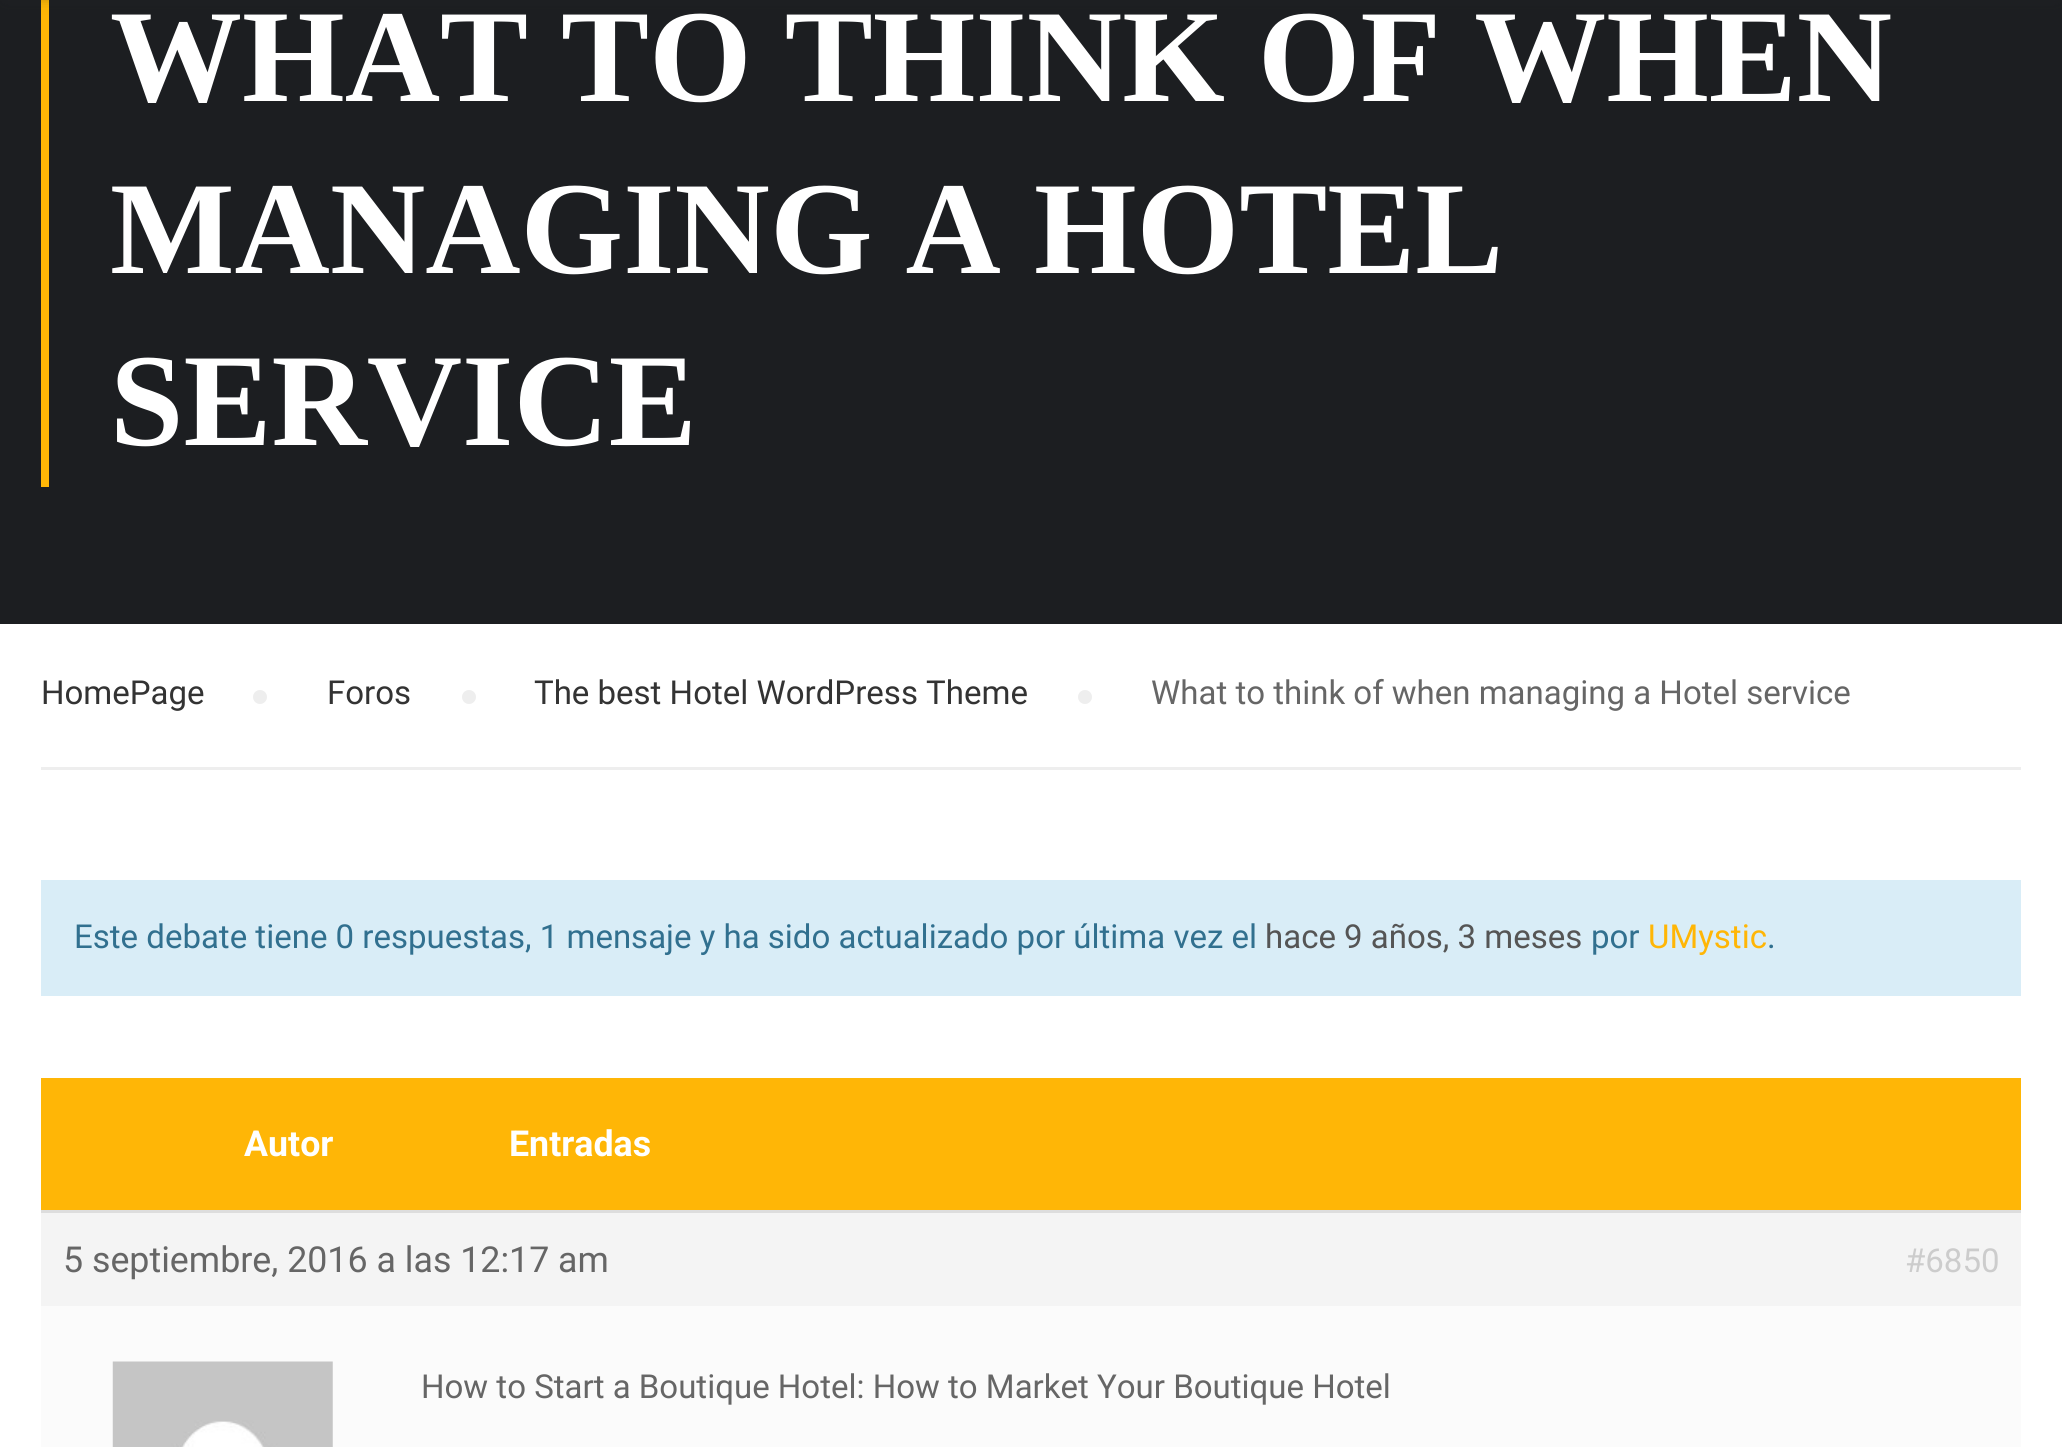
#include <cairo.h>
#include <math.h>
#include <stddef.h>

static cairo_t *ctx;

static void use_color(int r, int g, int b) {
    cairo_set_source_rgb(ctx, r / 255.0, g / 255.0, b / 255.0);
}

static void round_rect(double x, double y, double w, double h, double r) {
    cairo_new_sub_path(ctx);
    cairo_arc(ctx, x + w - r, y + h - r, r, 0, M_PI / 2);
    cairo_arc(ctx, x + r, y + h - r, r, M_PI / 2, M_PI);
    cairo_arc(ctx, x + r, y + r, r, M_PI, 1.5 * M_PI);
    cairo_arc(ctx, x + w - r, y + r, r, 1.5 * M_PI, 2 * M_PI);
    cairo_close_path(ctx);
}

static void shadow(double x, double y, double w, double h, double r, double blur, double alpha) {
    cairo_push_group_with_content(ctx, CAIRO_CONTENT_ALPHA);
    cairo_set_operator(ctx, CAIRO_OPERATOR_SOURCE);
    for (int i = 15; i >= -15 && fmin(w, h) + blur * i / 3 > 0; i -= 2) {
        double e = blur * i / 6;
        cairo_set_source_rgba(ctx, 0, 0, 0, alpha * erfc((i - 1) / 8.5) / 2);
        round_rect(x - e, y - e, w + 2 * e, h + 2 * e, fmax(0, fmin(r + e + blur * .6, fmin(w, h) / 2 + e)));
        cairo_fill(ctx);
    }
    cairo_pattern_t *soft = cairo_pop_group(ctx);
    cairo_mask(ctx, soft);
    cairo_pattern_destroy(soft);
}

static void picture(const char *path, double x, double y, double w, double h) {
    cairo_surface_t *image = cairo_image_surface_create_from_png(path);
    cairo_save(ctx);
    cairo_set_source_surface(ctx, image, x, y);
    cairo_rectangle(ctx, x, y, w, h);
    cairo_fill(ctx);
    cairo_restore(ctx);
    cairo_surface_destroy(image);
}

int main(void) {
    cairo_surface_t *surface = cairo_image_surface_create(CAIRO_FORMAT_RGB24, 2062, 1447);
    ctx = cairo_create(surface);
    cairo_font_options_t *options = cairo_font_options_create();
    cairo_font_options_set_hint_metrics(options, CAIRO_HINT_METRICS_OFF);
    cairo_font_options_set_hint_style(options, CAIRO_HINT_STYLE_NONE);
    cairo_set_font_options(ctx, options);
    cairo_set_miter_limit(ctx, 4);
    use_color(255, 255, 255);
    cairo_paint(ctx);
    use_color(28, 30, 33);
    cairo_rectangle(ctx, 0, 0, 2062, 624);
    cairo_fill(ctx);
    use_color(255, 182, 6);
    cairo_rectangle(ctx, 41, 0, 8, 487);
    cairo_fill(ctx);
    use_color(42, 42, 42);
    shadow(6, -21, 2051, 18, 0, 7, 0.4);
    cairo_select_font_face(ctx, "Liberation Serif", CAIRO_FONT_SLANT_NORMAL, CAIRO_FONT_WEIGHT_BOLD);
    cairo_set_font_size(ctx, 132);
    use_color(255, 255, 255);
    cairo_move_to(ctx, 110, 101);
    cairo_show_text(ctx, "WHAT TO THINK OF WHEN");
    cairo_move_to(ctx, 110, 273);
    cairo_show_text(ctx, "MANAGING A HOTEL");
    cairo_move_to(ctx, 110, 445);
    cairo_show_text(ctx, "SERVICE");
    use_color(238, 238, 238);
    cairo_rectangle(ctx, 41, 767, 1980, 3);
    cairo_fill(ctx);
    cairo_select_font_face(ctx, "Roboto", CAIRO_FONT_SLANT_NORMAL, CAIRO_FONT_WEIGHT_NORMAL);
    cairo_set_font_size(ctx, 33);
    use_color(51, 51, 51);
    cairo_move_to(ctx, 41, 704);
    cairo_show_text(ctx, "HomePage");
    use_color(238, 238, 238);
    cairo_new_path(ctx);
    cairo_arc(ctx, 260, 697, 7, 0, 2 * M_PI);
    cairo_fill(ctx);
    use_color(51, 51, 51);
    cairo_move_to(ctx, 327, 704);
    cairo_show_text(ctx, "Foros");
    use_color(238, 238, 238);
    cairo_new_path(ctx);
    cairo_arc(ctx, 469, 697, 7, 0, 2 * M_PI);
    cairo_fill(ctx);
    use_color(51, 51, 51);
    cairo_move_to(ctx, 534, 704);
    cairo_show_text(ctx, "The best Hotel WordPress Theme");
    use_color(238, 238, 238);
    cairo_new_path(ctx);
    cairo_arc(ctx, 1085, 697, 7, 0, 2 * M_PI);
    cairo_fill(ctx);
    use_color(102, 102, 102);
    cairo_move_to(ctx, 1151, 704);
    cairo_show_text(ctx, "What to think of when managing a Hotel service");
    use_color(217, 237, 247);
    cairo_rectangle(ctx, 41, 880, 1980, 116);
    cairo_fill(ctx);
    use_color(49, 112, 143);
    cairo_move_to(ctx, 74, 948);
    cairo_show_text(ctx, "Este debate tiene 0 respuestas, 1 mensaje y ha sido actualizado por última vez el");
    use_color(85, 85, 85);
    cairo_move_to(ctx, 1265, 948);
    cairo_show_text(ctx, "hace 9 años, 3 meses");
    use_color(49, 112, 143);
    cairo_move_to(ctx, 1591, 948);
    cairo_show_text(ctx, "por");
    use_color(255, 182, 6);
    cairo_move_to(ctx, 1648, 948);
    cairo_show_text(ctx, "UMystic");
    use_color(49, 112, 143);
    cairo_move_to(ctx, 1767, 948);
    cairo_show_text(ctx, ".");
    use_color(255, 182, 6);
    cairo_rectangle(ctx, 41, 1078, 1980, 132);
    cairo_fill(ctx);
    cairo_select_font_face(ctx, "Roboto", CAIRO_FONT_SLANT_NORMAL, CAIRO_FONT_WEIGHT_BOLD);
    cairo_set_font_size(ctx, 35.75);
    use_color(255, 255, 255);
    cairo_move_to(ctx, 244, 1156);
    cairo_show_text(ctx, "Autor");
    cairo_move_to(ctx, 509, 1156);
    cairo_show_text(ctx, "Entradas");
    use_color(244, 244, 244);
    cairo_rectangle(ctx, 41, 1213, 1980, 93);
    cairo_fill(ctx);
    use_color(221, 221, 221);
    cairo_rectangle(ctx, 41, 1210, 1980, 3);
    cairo_fill(ctx);
    cairo_select_font_face(ctx, "Roboto", CAIRO_FONT_SLANT_NORMAL, CAIRO_FONT_WEIGHT_NORMAL);
    use_color(102, 102, 102);
    cairo_move_to(ctx, 63, 1272);
    cairo_show_text(ctx, "5 septiembre, 2016 a las 12:17 am");
    cairo_set_font_size(ctx, 33);
    use_color(204, 204, 204);
    cairo_move_to(ctx, 1905, 1272);
    cairo_show_text(ctx, "#6850");
    use_color(251, 251, 251);
    cairo_rectangle(ctx, 41, 1306, 1980, 141);
    cairo_fill(ctx);
    picture("img1.png", 112, 1361, 221, 86);
    use_color(102, 102, 102);
    cairo_move_to(ctx, 421, 1398);
    cairo_show_text(ctx, "How to Start a Boutique Hotel: How to Market Your Boutique Hotel");
    cairo_surface_write_to_png(surface, "result.png");
    cairo_font_options_destroy(options);
    cairo_destroy(ctx);
    cairo_surface_destroy(surface);
    return 0;
}
